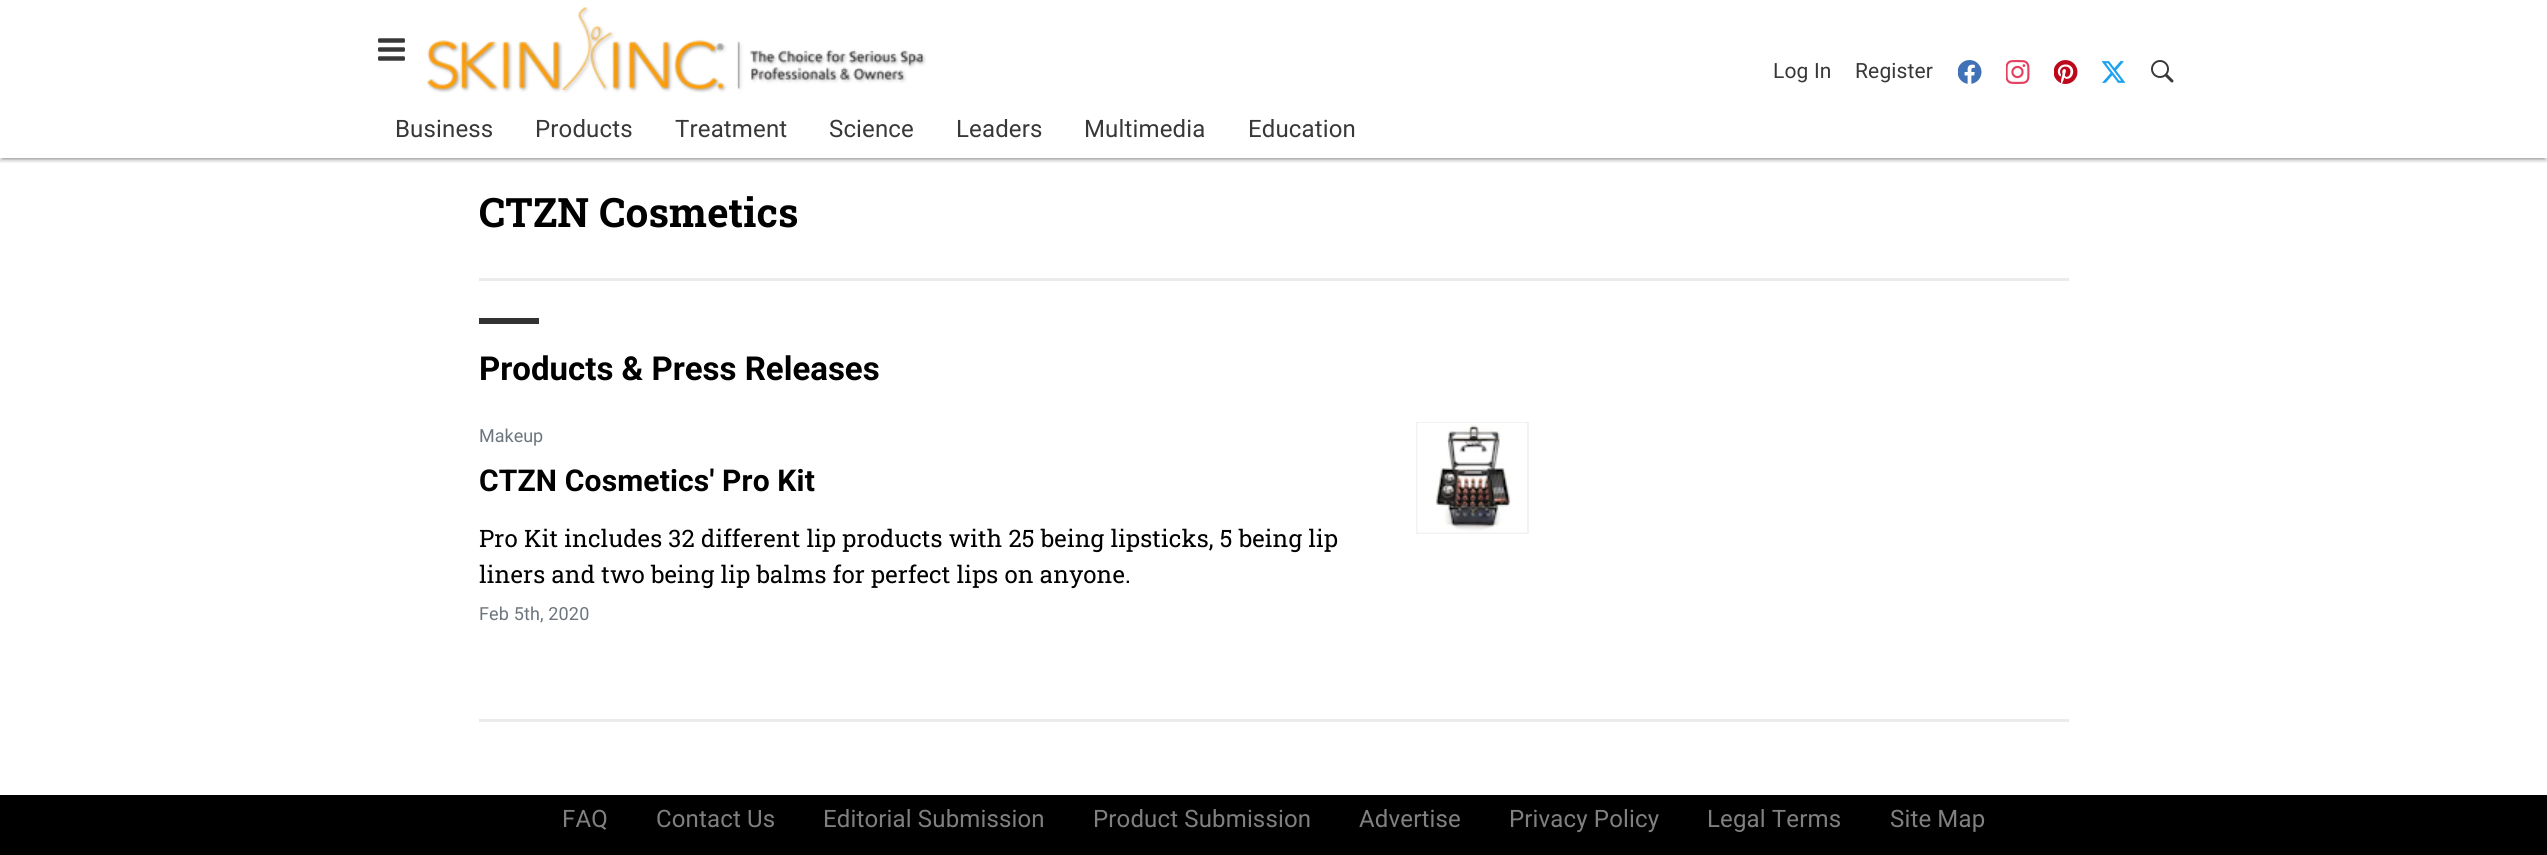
#include <cairo.h>
#include <math.h>
#include <stddef.h>

static cairo_t *ctx;

static void use_color(int r, int g, int b) {
    cairo_set_source_rgb(ctx, r / 255.0, g / 255.0, b / 255.0);
}

static void spaced_text(double x, double y, const char *s, double letter, double word) {
    cairo_move_to(ctx, x, y);
    while (*s) {
        char ch[5] = {0};
        int n = 0;
        do ch[n++] = *s++; while ((*s & 0xC0) == 0x80);
        cairo_show_text(ctx, ch);
        cairo_rel_move_to(ctx, letter + word * (*ch == ' '), 0);
    }
}

static void round_rect(double x, double y, double w, double h, double r) {
    cairo_new_sub_path(ctx);
    cairo_arc(ctx, x + w - r, y + h - r, r, 0, M_PI / 2);
    cairo_arc(ctx, x + r, y + h - r, r, M_PI / 2, M_PI);
    cairo_arc(ctx, x + r, y + r, r, M_PI, 1.5 * M_PI);
    cairo_arc(ctx, x + w - r, y + r, r, 1.5 * M_PI, 2 * M_PI);
    cairo_close_path(ctx);
}

static void shadow(double x, double y, double w, double h, double r, double blur, double alpha) {
    cairo_push_group_with_content(ctx, CAIRO_CONTENT_ALPHA);
    cairo_set_operator(ctx, CAIRO_OPERATOR_SOURCE);
    for (int i = 15; i >= -15 && fmin(w, h) + blur * i / 3 > 0; i -= 2) {
        double e = blur * i / 6;
        cairo_set_source_rgba(ctx, 0, 0, 0, alpha * erfc((i - 1) / 8.5) / 2);
        round_rect(x - e, y - e, w + 2 * e, h + 2 * e, fmax(0, fmin(r + e + blur * .6, fmin(w, h) / 2 + e)));
        cairo_fill(ctx);
    }
    cairo_pattern_t *soft = cairo_pop_group(ctx);
    cairo_mask(ctx, soft);
    cairo_pattern_destroy(soft);
}

static void picture(const char *path, double x, double y, double w, double h) {
    cairo_surface_t *image = cairo_image_surface_create_from_png(path);
    cairo_save(ctx);
    cairo_set_source_surface(ctx, image, x, y);
    cairo_rectangle(ctx, x, y, w, h);
    cairo_fill(ctx);
    cairo_restore(ctx);
    cairo_surface_destroy(image);
}

int main(void) {
    cairo_surface_t *surface = cairo_image_surface_create(CAIRO_FORMAT_RGB24, 2547, 855);
    ctx = cairo_create(surface);
    cairo_font_options_t *options = cairo_font_options_create();
    cairo_font_options_set_hint_metrics(options, CAIRO_HINT_METRICS_OFF);
    cairo_font_options_set_hint_style(options, CAIRO_HINT_STYLE_NONE);
    cairo_set_font_options(ctx, options);
    cairo_set_miter_limit(ctx, 4);
    use_color(255, 255, 255);
    cairo_paint(ctx);
    cairo_save(ctx);
    cairo_rectangle(ctx, 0, 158, 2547, 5);
    cairo_clip(ctx);
    use_color(0, 0, 0);
    shadow(0, 2, 2547, 157, 0, 4, 0.12);
    cairo_restore(ctx);
    cairo_save(ctx);
    cairo_rectangle(ctx, 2, 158, 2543, 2);
    cairo_clip(ctx);
    use_color(0, 0, 0);
    shadow(3, 8, 2541, 151, 0, 1, 0.2);
    cairo_restore(ctx);
    cairo_save(ctx);
    cairo_rectangle(ctx, 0, 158, 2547, 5);
    cairo_clip(ctx);
    use_color(0, 0, 0);
    shadow(0, 3, 2547, 158, 0, 1.5, 0.14);
    cairo_restore(ctx);
    picture("img1.png", 378, 38, 27, 23);
    picture("img2.png", 427, 7, 499, 86);
    cairo_select_font_face(ctx, "Roboto", CAIRO_FONT_SLANT_NORMAL, CAIRO_FONT_WEIGHT_NORMAL);
    cairo_set_font_size(ctx, 21);
    use_color(56, 56, 56);
    spaced_text(1773, 78, "Log In", 0.15, 0);
    spaced_text(1855, 78, "Register", 0.15, 0);
    picture("img3.png", 1958, 60, 24, 24);
    picture("img4.png", 2006, 60, 24, 24);
    picture("img5.png", 2054, 60, 24, 24);
    picture("img6.png", 2102, 61, 24, 22);
    picture("img7.png", 2151, 60, 23, 23);
    use_color(255, 255, 255);
    cairo_rectangle(ctx, 0, 157, 2547, 1);
    cairo_fill(ctx);
    cairo_set_font_size(ctx, 24);
    use_color(56, 56, 56);
    spaced_text(395, 137, "Business", 0.15, 0);
    spaced_text(535, 137, "Products", 0.15, 0);
    spaced_text(675, 137, "Treatment", 0.15, 0);
    spaced_text(829, 137, "Science", 0.15, 0);
    spaced_text(956, 137, "Leaders", 0.15, 0);
    spaced_text(1084, 137, "Multimedia", 0.15, 0);
    spaced_text(1248, 137, "Education", 0.15, 0);
    use_color(235, 235, 235);
    cairo_rectangle(ctx, 479, 278, 1590, 3);
    cairo_fill(ctx);
    cairo_select_font_face(ctx, "Roboto Slab", CAIRO_FONT_SLANT_NORMAL, CAIRO_FONT_WEIGHT_BOLD);
    cairo_set_font_size(ctx, 40.5);
    use_color(0, 0, 0);
    spaced_text(479, 227, "CTZN Cosmetics", 0.15, 0);
    use_color(235, 235, 235);
    cairo_rectangle(ctx, 479, 719, 1590, 3);
    cairo_fill(ctx);
    use_color(51, 51, 51);
    cairo_rectangle(ctx, 479, 318, 60, 6);
    cairo_fill(ctx);
    cairo_select_font_face(ctx, "Roboto", CAIRO_FONT_SLANT_NORMAL, CAIRO_FONT_WEIGHT_BOLD);
    cairo_set_font_size(ctx, 33);
    use_color(0, 0, 0);
    cairo_move_to(ctx, 479, 380);
    cairo_show_text(ctx, "Products & Press Releases");
    cairo_select_font_face(ctx, "Roboto", CAIRO_FONT_SLANT_NORMAL, CAIRO_FONT_WEIGHT_NORMAL);
    cairo_set_font_size(ctx, 18);
    use_color(108, 117, 125);
    cairo_move_to(ctx, 479, 442);
    cairo_show_text(ctx, "Makeup");
    cairo_select_font_face(ctx, "Roboto", CAIRO_FONT_SLANT_NORMAL, CAIRO_FONT_WEIGHT_BOLD);
    cairo_set_font_size(ctx, 30);
    use_color(0, 0, 0);
    spaced_text(479, 491, "CTZN Cosmetics' Pro Kit", 0.15, 0);
    cairo_select_font_face(ctx, "Roboto Slab", CAIRO_FONT_SLANT_NORMAL, CAIRO_FONT_WEIGHT_NORMAL);
    cairo_set_font_size(ctx, 24);
    spaced_text(479, 547, "Pro Kit includes 32 different lip products with 25 being lipsticks, 5 being lip", 0.15, 0);
    spaced_text(479, 583, "liners and two being lip balms for perfect lips on anyone.", 0.15, 0);
    cairo_select_font_face(ctx, "Roboto", CAIRO_FONT_SLANT_NORMAL, CAIRO_FONT_WEIGHT_NORMAL);
    cairo_set_font_size(ctx, 18);
    use_color(108, 117, 125);
    spaced_text(479, 620, "Feb 5th, 2020", 0.15, 0);
    cairo_rectangle(ctx, 1417, 423, 111, 110);
    use_color(242, 242, 242);
    cairo_stroke(ctx);
    picture("img8.png", 1417, 423, 110, 110);
    use_color(0, 0, 0);
    cairo_rectangle(ctx, 0, 795, 2547, 60);
    cairo_fill(ctx);
    cairo_set_font_size(ctx, 24);
    use_color(128, 128, 128);
    spaced_text(562, 827, "FAQ", 0.15, 0);
    spaced_text(656, 827, "Contact Us", 0.15, 0);
    spaced_text(823, 827, "Editorial Submission", 0.15, 0);
    spaced_text(1093, 827, "Product Submission", 0.15, 0);
    spaced_text(1359, 827, "Advertise", 0.15, 0);
    spaced_text(1509, 827, "Privacy Policy", 0.15, 0);
    spaced_text(1707, 827, "Legal Terms", 0.15, 0);
    spaced_text(1890, 827, "Site Map", 0.15, 0);
    cairo_surface_write_to_png(surface, "result.png");
    cairo_font_options_destroy(options);
    cairo_destroy(ctx);
    cairo_surface_destroy(surface);
    return 0;
}
